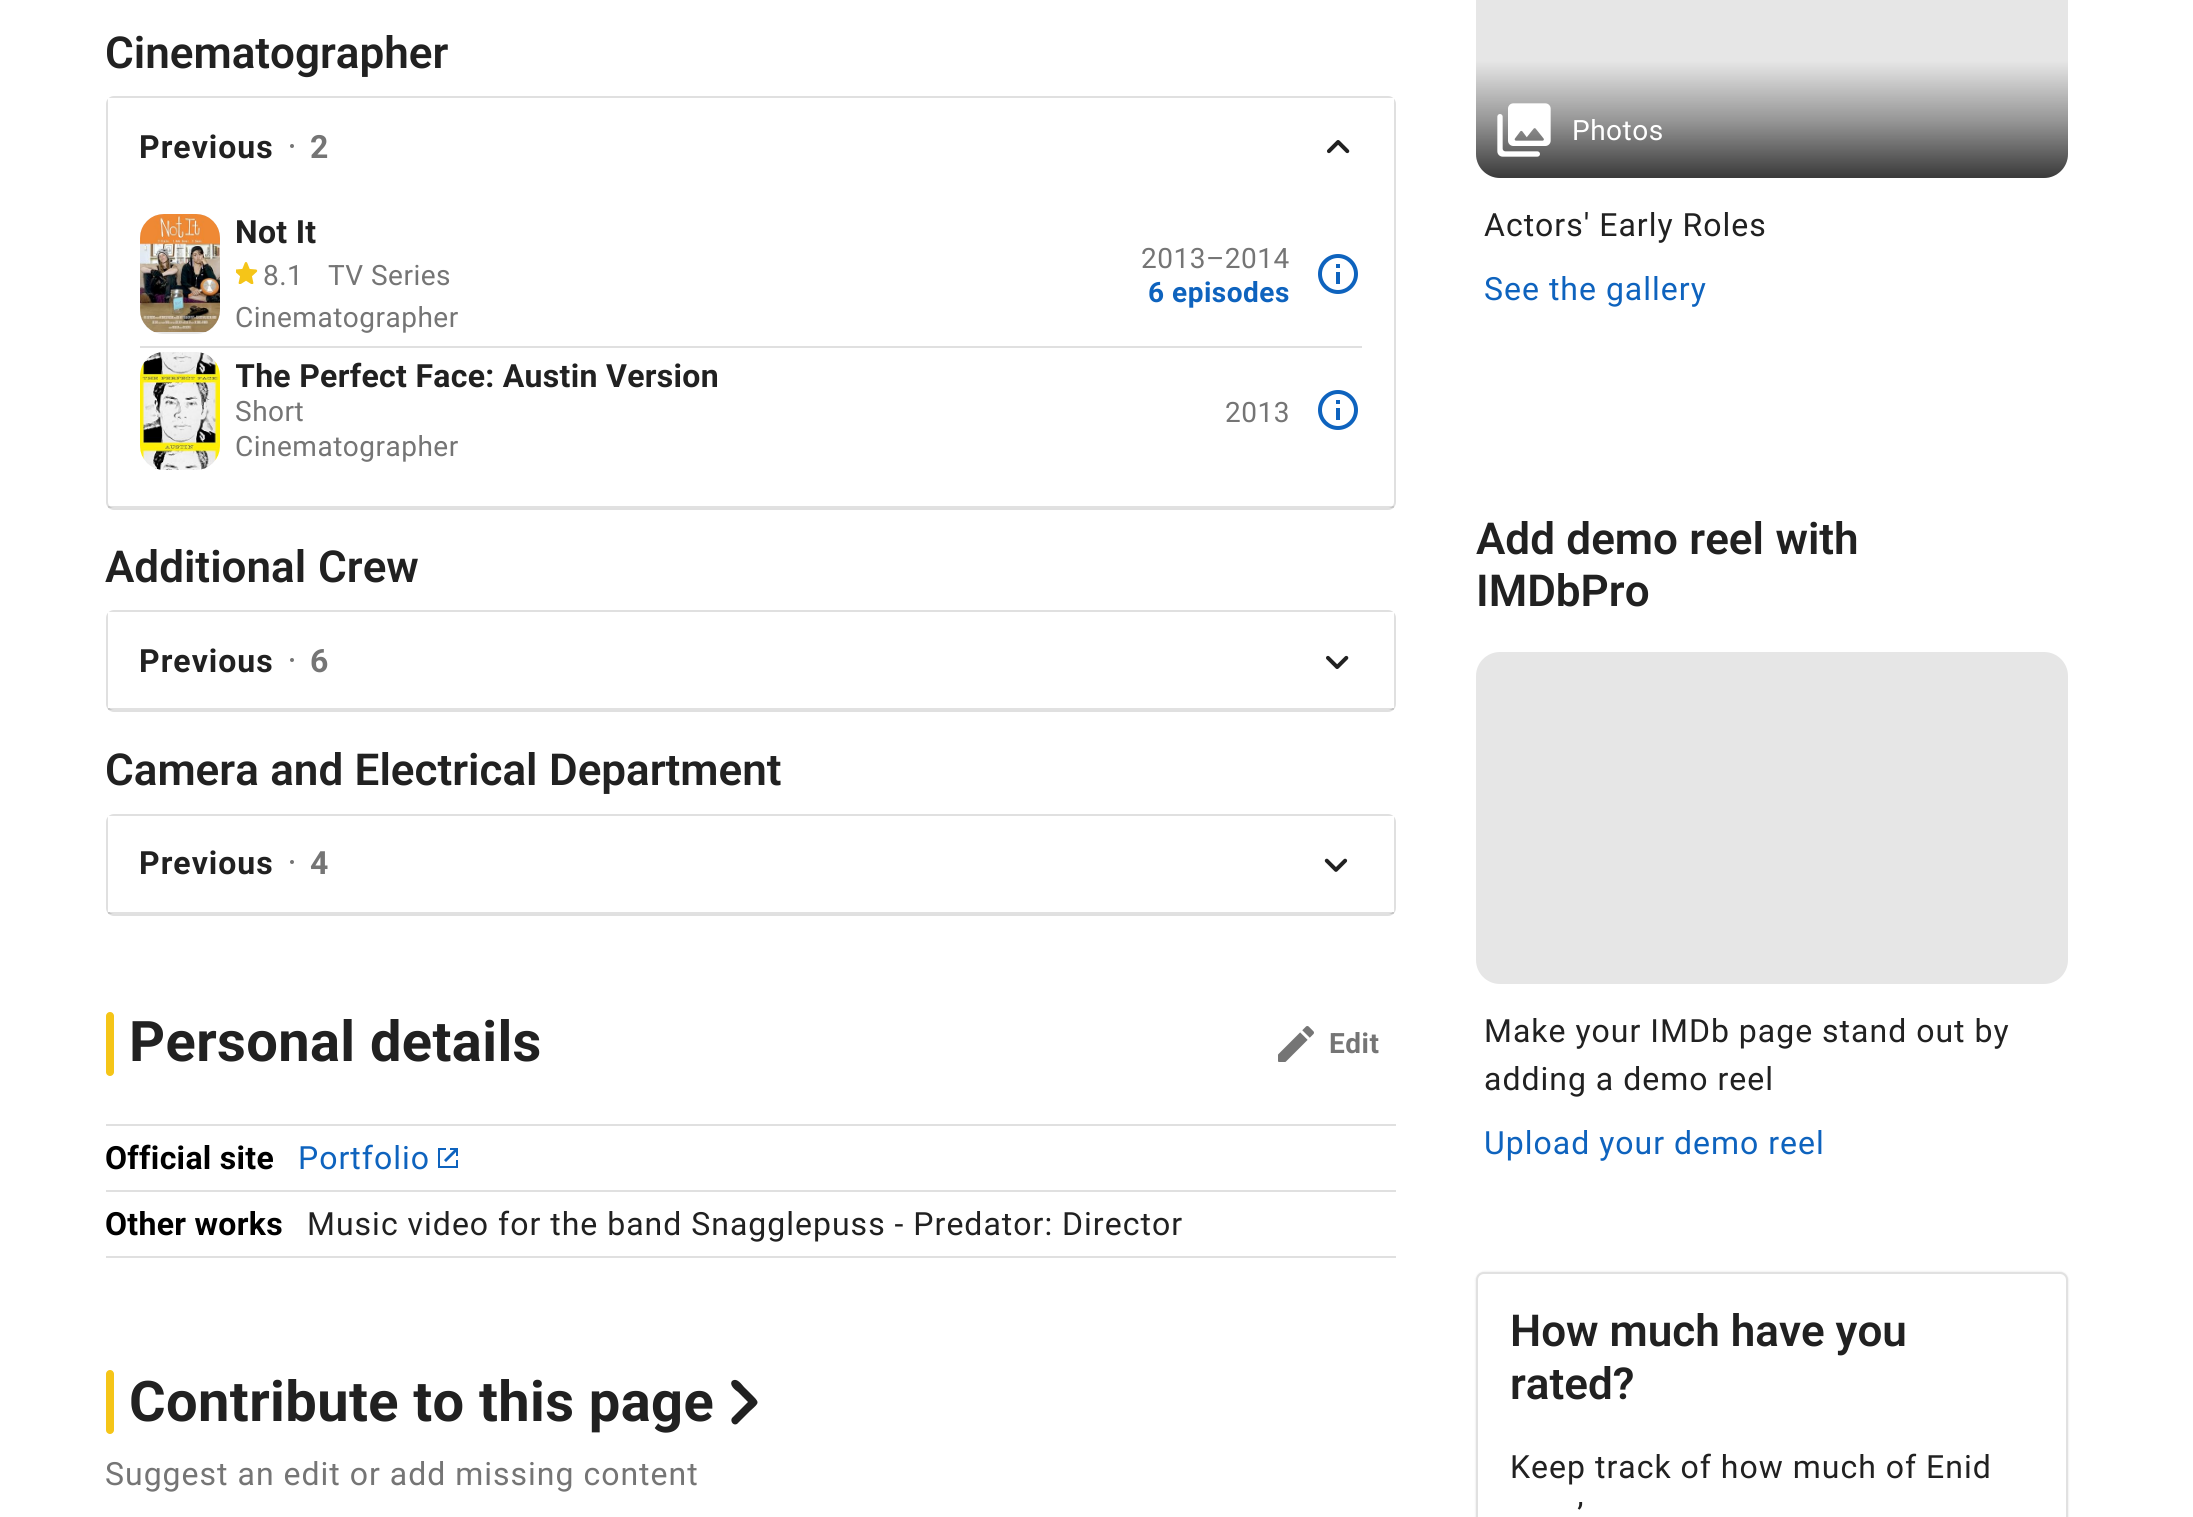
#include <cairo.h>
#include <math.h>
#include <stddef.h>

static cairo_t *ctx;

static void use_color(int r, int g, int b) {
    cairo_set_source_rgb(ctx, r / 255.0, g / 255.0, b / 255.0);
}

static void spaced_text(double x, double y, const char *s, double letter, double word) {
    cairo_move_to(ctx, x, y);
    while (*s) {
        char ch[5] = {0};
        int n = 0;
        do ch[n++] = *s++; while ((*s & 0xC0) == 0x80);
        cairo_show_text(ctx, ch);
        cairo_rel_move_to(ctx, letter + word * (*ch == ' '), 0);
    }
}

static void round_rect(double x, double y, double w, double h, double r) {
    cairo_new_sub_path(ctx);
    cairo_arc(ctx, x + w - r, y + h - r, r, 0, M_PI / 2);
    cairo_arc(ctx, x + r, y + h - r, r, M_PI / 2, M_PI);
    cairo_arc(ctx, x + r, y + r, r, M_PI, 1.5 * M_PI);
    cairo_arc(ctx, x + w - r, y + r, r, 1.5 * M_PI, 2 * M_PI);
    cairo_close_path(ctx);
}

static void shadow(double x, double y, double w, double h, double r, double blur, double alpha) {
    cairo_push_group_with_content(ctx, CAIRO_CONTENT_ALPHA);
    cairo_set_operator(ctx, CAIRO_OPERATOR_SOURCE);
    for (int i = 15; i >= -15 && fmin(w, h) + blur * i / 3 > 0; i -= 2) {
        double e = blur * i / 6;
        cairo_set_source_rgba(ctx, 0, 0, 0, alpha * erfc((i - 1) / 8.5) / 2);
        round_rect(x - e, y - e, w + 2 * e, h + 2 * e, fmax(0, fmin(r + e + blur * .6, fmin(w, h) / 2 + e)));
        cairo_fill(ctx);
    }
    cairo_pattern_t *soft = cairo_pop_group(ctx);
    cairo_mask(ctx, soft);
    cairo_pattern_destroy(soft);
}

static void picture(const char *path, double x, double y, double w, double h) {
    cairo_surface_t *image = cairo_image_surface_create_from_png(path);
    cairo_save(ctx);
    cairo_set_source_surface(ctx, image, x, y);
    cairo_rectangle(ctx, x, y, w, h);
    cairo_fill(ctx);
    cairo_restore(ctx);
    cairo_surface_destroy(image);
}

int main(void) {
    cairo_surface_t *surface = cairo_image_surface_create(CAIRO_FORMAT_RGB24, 2193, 1517);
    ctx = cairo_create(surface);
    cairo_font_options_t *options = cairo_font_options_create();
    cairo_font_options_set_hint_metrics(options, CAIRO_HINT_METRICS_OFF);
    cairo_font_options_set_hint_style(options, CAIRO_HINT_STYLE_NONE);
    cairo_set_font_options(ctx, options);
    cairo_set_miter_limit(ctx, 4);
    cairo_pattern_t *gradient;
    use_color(255, 255, 255);
    cairo_paint(ctx);
    cairo_select_font_face(ctx, "Roboto SemiBold", CAIRO_FONT_SLANT_NORMAL, CAIRO_FONT_WEIGHT_NORMAL);
    cairo_set_font_size(ctx, 44);
    use_color(33, 33, 33);
    cairo_move_to(ctx, 105, 68);
    cairo_show_text(ctx, "Cinematographer");
    round_rect(107, 97, 1288, 412, 7);
    use_color(224, 224, 224);
    cairo_stroke(ctx);
    use_color(255, 255, 255);
    cairo_rectangle(ctx, 108, 98, 1286, 5);
    cairo_fill(ctx);
    cairo_select_font_face(ctx, "Roboto", CAIRO_FONT_SLANT_NORMAL, CAIRO_FONT_WEIGHT_BOLD);
    cairo_set_font_size(ctx, 32);
    use_color(33, 33, 33);
    spaced_text(139, 158, "Previous", 1, 0);
    use_color(117, 117, 117);
    cairo_new_path(ctx);
    cairo_arc(ctx, 292, 146, 2, 0, 2 * M_PI);
    cairo_fill(ctx);
    spaced_text(310, 158, "2", 1, 0);
    picture("img1.png", 1327, 140, 23, 14);
    use_color(230, 230, 230);
    round_rect(140, 214, 80, 120, 24);
    cairo_fill(ctx);
    picture("img2.png", 140, 214, 80, 118);
    use_color(33, 33, 33);
    spaced_text(235, 243, "Not It", 0.3, 0);
    picture("img3.png", 236, 262, 22, 22);
    cairo_select_font_face(ctx, "Roboto", CAIRO_FONT_SLANT_NORMAL, CAIRO_FONT_WEIGHT_NORMAL);
    cairo_set_font_size(ctx, 28);
    use_color(117, 117, 117);
    spaced_text(263, 285, "8.1", 0.5, 0);
    spaced_text(328, 285, "TV Series", 0.5, 0);
    spaced_text(235, 327, "Cinematographer", 0.5, 0);
    spaced_text(1141, 268, "2013–2014", 0.5, 0);
    cairo_select_font_face(ctx, "Roboto", CAIRO_FONT_SLANT_NORMAL, CAIRO_FONT_WEIGHT_BOLD);
    use_color(14, 99, 190);
    spaced_text(1148, 302, "6 episodes", 0.5, 0);
    picture("img4.png", 1318, 254, 40, 40);
    use_color(224, 224, 224);
    cairo_rectangle(ctx, 140, 346, 1222, 2);
    cairo_fill(ctx);
    picture("img5.png", 140, 352, 80, 118);
    cairo_save(ctx);
    cairo_rectangle(ctx, 236, 360, 894, 36);
    cairo_clip(ctx);
    cairo_set_font_size(ctx, 32);
    use_color(33, 33, 33);
    spaced_text(235, 387, "The Perfect Face: Austin Version", 0.3, 0);
    cairo_restore(ctx);
    cairo_select_font_face(ctx, "Roboto", CAIRO_FONT_SLANT_NORMAL, CAIRO_FONT_WEIGHT_NORMAL);
    use_color(117, 117, 117);
    spaced_text(235, 421, "Short", 0.5, 0);
    spaced_text(235, 456, "Cinematographer", 0.5, 0);
    spaced_text(1225, 422, "2013", 0.5, 0);
    picture("img4.png", 1318, 390, 40, 40);
    cairo_set_source_rgba(ctx, 0, 0, 0, 0.12);
    cairo_rectangle(ctx, 108, 506, 1286, 2);
    cairo_fill(ctx);
    cairo_select_font_face(ctx, "Roboto SemiBold", CAIRO_FONT_SLANT_NORMAL, CAIRO_FONT_WEIGHT_NORMAL);
    cairo_set_font_size(ctx, 44);
    use_color(33, 33, 33);
    spaced_text(105, 582, "Additional Crew", 0, 1);
    round_rect(107, 611, 1288, 100, 7);
    use_color(224, 224, 224);
    cairo_stroke(ctx);
    use_color(255, 255, 255);
    cairo_rectangle(ctx, 108, 612, 1286, 96);
    cairo_fill(ctx);
    cairo_select_font_face(ctx, "Roboto", CAIRO_FONT_SLANT_NORMAL, CAIRO_FONT_WEIGHT_BOLD);
    cairo_set_font_size(ctx, 32);
    use_color(33, 33, 33);
    spaced_text(139, 672, "Previous", 1, 0);
    use_color(117, 117, 117);
    cairo_new_path(ctx);
    cairo_arc(ctx, 292, 660, 2, 0, 2 * M_PI);
    cairo_fill(ctx);
    spaced_text(310, 672, "6", 1, 0);
    picture("img6.png", 1326, 655, 23, 14);
    cairo_set_source_rgba(ctx, 0, 0, 0, 0.12);
    cairo_rectangle(ctx, 108, 708, 1286, 2);
    cairo_fill(ctx);
    cairo_select_font_face(ctx, "Roboto SemiBold", CAIRO_FONT_SLANT_NORMAL, CAIRO_FONT_WEIGHT_NORMAL);
    cairo_set_font_size(ctx, 44);
    use_color(33, 33, 33);
    spaced_text(105, 785, "Camera and Electrical Department", 0, 0.5);
    round_rect(107, 815, 1288, 100, 7);
    use_color(224, 224, 224);
    cairo_stroke(ctx);
    use_color(255, 255, 255);
    cairo_rectangle(ctx, 108, 816, 1286, 96);
    cairo_fill(ctx);
    cairo_select_font_face(ctx, "Roboto", CAIRO_FONT_SLANT_NORMAL, CAIRO_FONT_WEIGHT_BOLD);
    cairo_set_font_size(ctx, 32);
    use_color(33, 33, 33);
    spaced_text(139, 874, "Previous", 1, 0);
    use_color(117, 117, 117);
    cairo_new_path(ctx);
    cairo_arc(ctx, 292, 862, 2, 0, 2 * M_PI);
    cairo_fill(ctx);
    spaced_text(310, 874, "4", 1, 0);
    picture("img7.png", 1324, 858, 24, 14);
    cairo_set_source_rgba(ctx, 0, 0, 0, 0.12);
    cairo_rectangle(ctx, 108, 912, 1286, 2);
    cairo_fill(ctx);
    use_color(245, 197, 24);
    round_rect(106, 1012, 8, 64, 4);
    cairo_fill(ctx);
    cairo_set_font_size(ctx, 56);
    use_color(33, 33, 33);
    spaced_text(129, 1061, "Personal details", 0.4, 0);
    picture("img8.png", 1278, 1026, 36, 36);
    cairo_set_font_size(ctx, 28);
    use_color(117, 117, 117);
    spaced_text(1329, 1053, "Edit", 0.5, 0);
    use_color(224, 224, 224);
    cairo_rectangle(ctx, 106, 1124, 1290, 2);
    cairo_fill(ctx);
    cairo_set_font_size(ctx, 32);
    use_color(0, 0, 0);
    spaced_text(105, 1169, "Official site", 0.3, 0);
    cairo_select_font_face(ctx, "Roboto", CAIRO_FONT_SLANT_NORMAL, CAIRO_FONT_WEIGHT_NORMAL);
    use_color(14, 99, 190);
    spaced_text(298, 1169, "Portfolio", 1, 0);
    picture("img9.png", 438, 1148, 20, 20);
    use_color(224, 224, 224);
    cairo_rectangle(ctx, 106, 1190, 1290, 2);
    cairo_fill(ctx);
    cairo_rectangle(ctx, 106, 1256, 1290, 2);
    cairo_fill(ctx);
    cairo_select_font_face(ctx, "Roboto", CAIRO_FONT_SLANT_NORMAL, CAIRO_FONT_WEIGHT_BOLD);
    use_color(0, 0, 0);
    spaced_text(105, 1235, "Other works", 0.3, 0);
    cairo_select_font_face(ctx, "Roboto", CAIRO_FONT_SLANT_NORMAL, CAIRO_FONT_WEIGHT_NORMAL);
    use_color(33, 33, 33);
    spaced_text(307, 1235, "Music video for the band Snagglepuss - Predator: Director", 1, 0);
    use_color(245, 197, 24);
    round_rect(106, 1370, 8, 64, 4);
    cairo_fill(ctx);
    cairo_select_font_face(ctx, "Roboto", CAIRO_FONT_SLANT_NORMAL, CAIRO_FONT_WEIGHT_BOLD);
    cairo_set_font_size(ctx, 56);
    use_color(33, 33, 33);
    spaced_text(129, 1421, "Contribute to this page", 0.4, 0);
    cairo_new_path(ctx);
    cairo_move_to(ctx, 732, 1381);
    cairo_curve_to(ctx, 729, 1385, 735, 1390, 738, 1392);
    cairo_line_to(ctx, 748, 1402);
    cairo_line_to(ctx, 732, 1418);
    cairo_curve_to(ctx, 730, 1421, 733, 1426, 737, 1424);
    cairo_line_to(ctx, 750, 1411);
    cairo_curve_to(ctx, 760, 1402, 760, 1403, 750, 1393);
    cairo_line_to(ctx, 744, 1387);
    cairo_curve_to(ctx, 742, 1385, 737, 1377, 732, 1381);
    cairo_close_path(ctx);
    cairo_fill(ctx);
    cairo_select_font_face(ctx, "Roboto", CAIRO_FONT_SLANT_NORMAL, CAIRO_FONT_WEIGHT_NORMAL);
    cairo_set_font_size(ctx, 32);
    use_color(117, 117, 117);
    spaced_text(105, 1485, "Suggest an edit or add missing content", 1, 0);
    use_color(230, 230, 230);
    round_rect(1476, -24, 592, 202, 24);
    cairo_fill(ctx);
    gradient = cairo_pattern_create_linear(1772, -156, 1772, 178);
    cairo_pattern_add_color_stop_rgba(gradient, 0, 0, 0, 0, 0);
    cairo_pattern_add_color_stop_rgba(gradient, 0.65, 0, 0, 0, 0);
    cairo_pattern_add_color_stop_rgba(gradient, 0.83, 0, 0, 0, 0.35);
    cairo_pattern_add_color_stop_rgba(gradient, 1, 0, 0, 0, 0.75);
    cairo_set_source(ctx, gradient);
    cairo_pattern_destroy(gradient);
    round_rect(1476, -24, 592, 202, 24);
    cairo_fill(ctx);
    picture("img10.png", 1497, 103, 54, 54);
    cairo_set_font_size(ctx, 28);
    use_color(255, 255, 255);
    spaced_text(1572, 140, "Photos", 0.5, 0);
    cairo_set_font_size(ctx, 32);
    use_color(33, 33, 33);
    spaced_text(1484, 236, "Actors' Early Roles", 1, 0);
    use_color(14, 99, 190);
    spaced_text(1484, 300, "See the gallery", 1, 0);
    cairo_select_font_face(ctx, "Roboto SemiBold", CAIRO_FONT_SLANT_NORMAL, CAIRO_FONT_WEIGHT_NORMAL);
    cairo_set_font_size(ctx, 44);
    use_color(33, 33, 33);
    spaced_text(1476, 554, "Add demo reel with", 0, 0.5);
    cairo_move_to(ctx, 1476, 606);
    cairo_show_text(ctx, "IMDbPro");
    use_color(230, 230, 230);
    round_rect(1476, 652, 592, 332, 24);
    cairo_fill(ctx);
    cairo_select_font_face(ctx, "Roboto", CAIRO_FONT_SLANT_NORMAL, CAIRO_FONT_WEIGHT_NORMAL);
    cairo_set_font_size(ctx, 32);
    use_color(33, 33, 33);
    spaced_text(1484, 1042, "Make your IMDb page stand out by", 1, 0);
    spaced_text(1484, 1090, "adding a demo reel", 1, 0);
    use_color(14, 99, 190);
    spaced_text(1484, 1154, "Upload your demo reel", 1, 0);
    use_color(0, 0, 0);
    shadow(1476, 1272, 592, 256, 8, 1, 0.12);
    use_color(255, 255, 255);
    round_rect(1476, 1272, 592, 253, 8);
    cairo_fill(ctx);
    round_rect(1477, 1273, 590, 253, 7);
    cairo_set_source_rgba(ctx, 0, 0, 0, 0.12);
    cairo_stroke(ctx);
    cairo_select_font_face(ctx, "Roboto SemiBold", CAIRO_FONT_SLANT_NORMAL, CAIRO_FONT_WEIGHT_NORMAL);
    cairo_set_font_size(ctx, 44);
    use_color(33, 33, 33);
    cairo_move_to(ctx, 1510, 1346);
    cairo_show_text(ctx, "How much have you");
    cairo_move_to(ctx, 1510, 1399);
    cairo_show_text(ctx, "rated?");
    cairo_select_font_face(ctx, "Roboto", CAIRO_FONT_SLANT_NORMAL, CAIRO_FONT_WEIGHT_NORMAL);
    cairo_set_font_size(ctx, 32);
    spaced_text(1510, 1478, "Keep track of how much of Enid", 1, 0);
    spaced_text(1577, 1526, "’", 1, 0);
    cairo_surface_write_to_png(surface, "result.png");
    cairo_font_options_destroy(options);
    cairo_destroy(ctx);
    cairo_surface_destroy(surface);
    return 0;
}
